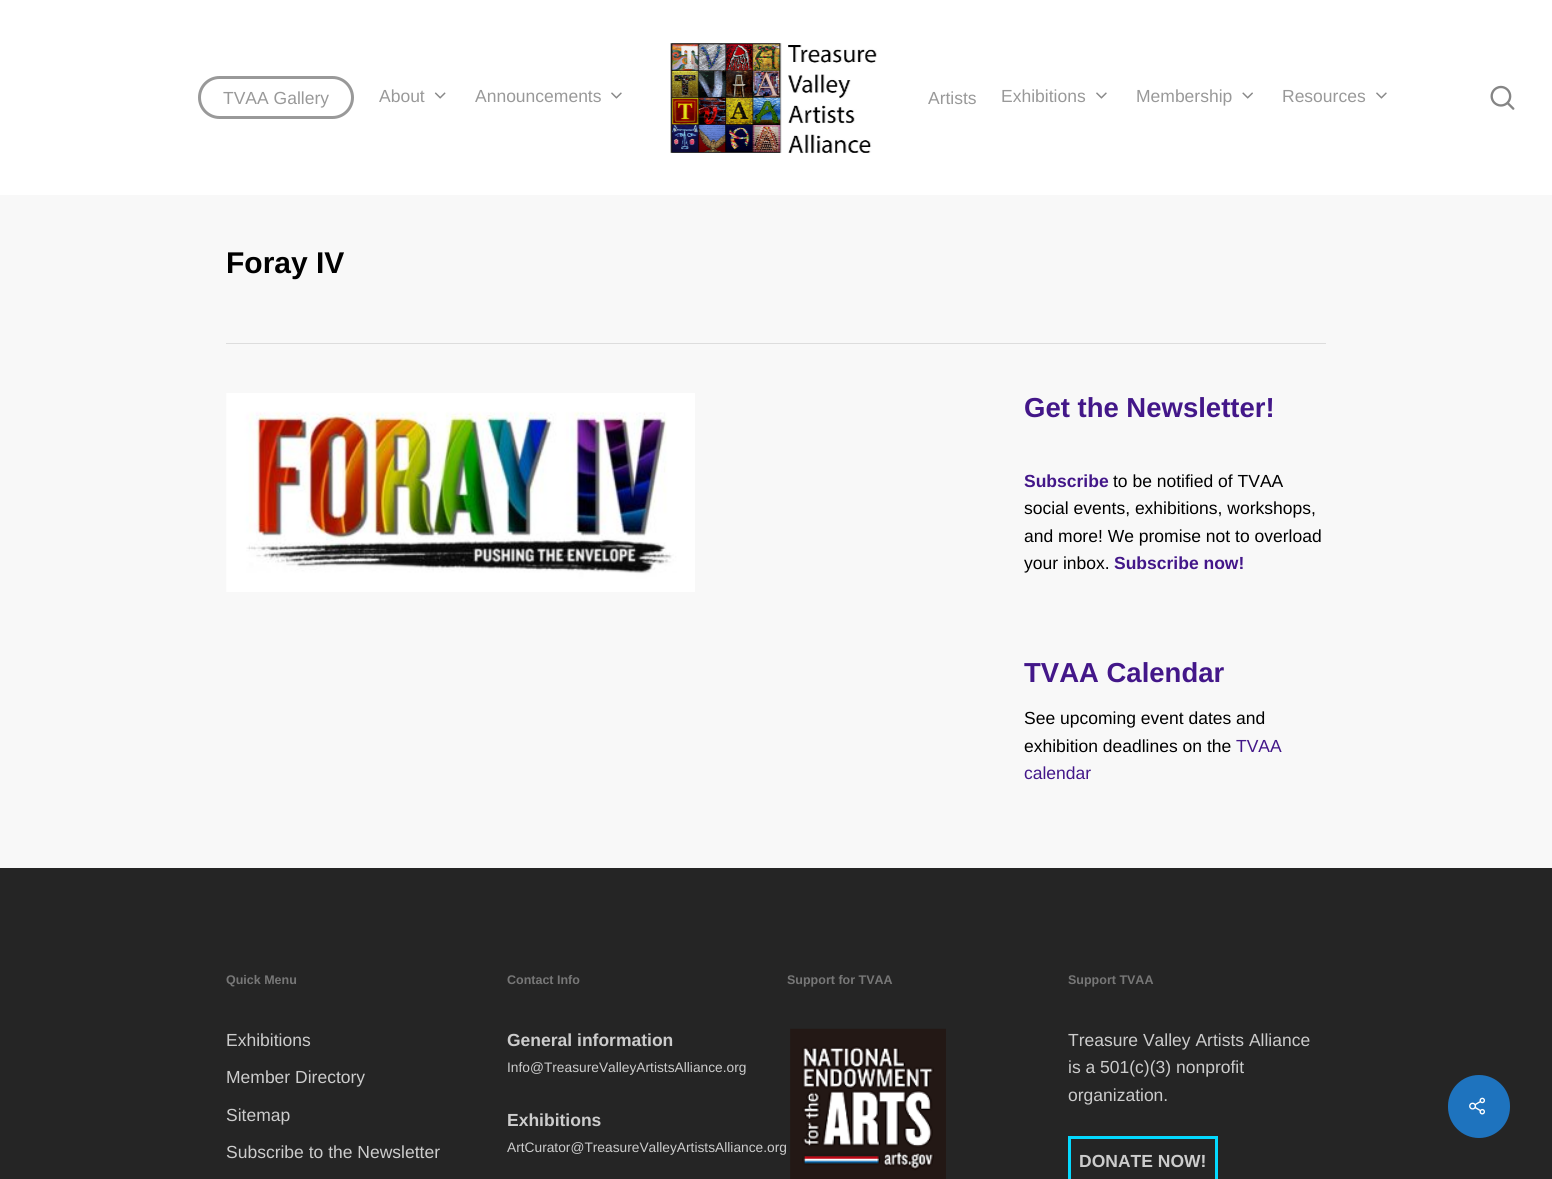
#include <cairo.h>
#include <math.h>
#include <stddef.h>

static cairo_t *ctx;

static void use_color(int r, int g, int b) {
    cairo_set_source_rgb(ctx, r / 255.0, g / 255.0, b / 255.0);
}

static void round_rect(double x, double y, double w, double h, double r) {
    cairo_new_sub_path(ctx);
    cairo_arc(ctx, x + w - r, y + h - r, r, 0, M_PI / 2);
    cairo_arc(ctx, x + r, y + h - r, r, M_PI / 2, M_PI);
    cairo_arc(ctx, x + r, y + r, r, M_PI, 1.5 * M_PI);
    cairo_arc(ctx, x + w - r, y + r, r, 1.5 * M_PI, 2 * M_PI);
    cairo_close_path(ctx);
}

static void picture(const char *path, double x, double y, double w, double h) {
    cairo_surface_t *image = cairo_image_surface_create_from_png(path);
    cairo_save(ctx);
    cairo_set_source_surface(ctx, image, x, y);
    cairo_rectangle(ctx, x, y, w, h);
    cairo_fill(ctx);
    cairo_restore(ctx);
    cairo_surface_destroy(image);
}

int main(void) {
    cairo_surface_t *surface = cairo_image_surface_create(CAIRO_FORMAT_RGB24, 1552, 1179);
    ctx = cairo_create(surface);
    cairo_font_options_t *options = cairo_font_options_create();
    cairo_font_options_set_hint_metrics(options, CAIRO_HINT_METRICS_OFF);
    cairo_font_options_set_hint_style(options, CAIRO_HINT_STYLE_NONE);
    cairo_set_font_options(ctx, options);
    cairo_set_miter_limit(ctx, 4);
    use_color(248, 248, 248);
    cairo_paint(ctx);
    use_color(255, 255, 255);
    cairo_rectangle(ctx, 0, 0, 1552, 195);
    cairo_fill(ctx);
    picture("img1.png", 670, 43, 207, 110);
    round_rect(199.5, 77.5, 153, 40, 20);
    use_color(153, 153, 153);
    cairo_set_line_width(ctx, 3);
    cairo_stroke(ctx);
    cairo_select_font_face(ctx, "Liberation Sans", CAIRO_FONT_SLANT_NORMAL, CAIRO_FONT_WEIGHT_NORMAL);
    cairo_set_font_size(ctx, 17.5);
    cairo_move_to(ctx, 223, 104);
    cairo_show_text(ctx, "TVAA Gallery");
    cairo_move_to(ctx, 379, 102);
    cairo_show_text(ctx, "About");
    picture("img2.png", 434, 92, 12, 7);
    cairo_move_to(ctx, 475, 102);
    cairo_show_text(ctx, "Announcements");
    picture("img3.png", 611, 92, 11, 7);
    cairo_move_to(ctx, 928, 104);
    cairo_show_text(ctx, "Artists");
    cairo_move_to(ctx, 1001, 102);
    cairo_show_text(ctx, "Exhibitions");
    picture("img3.png", 1096, 92, 11, 7);
    cairo_move_to(ctx, 1136, 102);
    cairo_show_text(ctx, "Membership");
    picture("img4.png", 1242, 92, 11, 7);
    cairo_move_to(ctx, 1282, 102);
    cairo_show_text(ctx, "Resources");
    picture("img3.png", 1376, 92, 11, 7);
    picture("img5.png", 1490, 85, 25, 25);
    use_color(221, 221, 221);
    cairo_rectangle(ctx, 226, 343, 1100, 1);
    cairo_fill(ctx);
    cairo_select_font_face(ctx, "Liberation Sans", CAIRO_FONT_SLANT_NORMAL, CAIRO_FONT_WEIGHT_BOLD);
    cairo_set_font_size(ctx, 30);
    use_color(0, 0, 0);
    cairo_move_to(ctx, 226, 273);
    cairo_show_text(ctx, "Foray IV");
    picture("img6.png", 226, 393, 469, 199);
    cairo_set_font_size(ctx, 27.5);
    use_color(67, 23, 137);
    cairo_move_to(ctx, 1024, 417);
    cairo_show_text(ctx, "Get the Newsletter!");
    cairo_set_font_size(ctx, 17.5);
    cairo_move_to(ctx, 1024, 487);
    cairo_show_text(ctx, "Subscribe");
    cairo_select_font_face(ctx, "Liberation Sans", CAIRO_FONT_SLANT_NORMAL, CAIRO_FONT_WEIGHT_NORMAL);
    use_color(0, 0, 0);
    cairo_move_to(ctx, 1113, 487);
    cairo_show_text(ctx, "to be notified of TVAA");
    cairo_move_to(ctx, 1024, 514);
    cairo_show_text(ctx, "social events, exhibitions, workshops,");
    cairo_move_to(ctx, 1024, 542);
    cairo_show_text(ctx, "and more! We promise not to overload");
    cairo_move_to(ctx, 1024, 569);
    cairo_show_text(ctx, "your inbox.");
    cairo_select_font_face(ctx, "Liberation Sans", CAIRO_FONT_SLANT_NORMAL, CAIRO_FONT_WEIGHT_BOLD);
    use_color(67, 23, 137);
    cairo_move_to(ctx, 1114, 569);
    cairo_show_text(ctx, "Subscribe now!");
    cairo_set_font_size(ctx, 27.5);
    cairo_move_to(ctx, 1024, 682);
    cairo_show_text(ctx, "TVAA Calendar");
    cairo_select_font_face(ctx, "Liberation Sans", CAIRO_FONT_SLANT_NORMAL, CAIRO_FONT_WEIGHT_NORMAL);
    cairo_set_font_size(ctx, 17.5);
    use_color(0, 0, 0);
    cairo_move_to(ctx, 1024, 724);
    cairo_show_text(ctx, "See upcoming event dates and");
    cairo_move_to(ctx, 1024, 752);
    cairo_show_text(ctx, "exhibition deadlines on the");
    use_color(67, 23, 137);
    cairo_move_to(ctx, 1236, 752);
    cairo_show_text(ctx, "TVAA");
    cairo_move_to(ctx, 1024, 779);
    cairo_show_text(ctx, "calendar");
    use_color(37, 37, 37);
    cairo_rectangle(ctx, 0, 868, 1552, 311);
    cairo_fill(ctx);
    cairo_select_font_face(ctx, "Liberation Sans", CAIRO_FONT_SLANT_NORMAL, CAIRO_FONT_WEIGHT_BOLD);
    cairo_set_font_size(ctx, 12.5);
    use_color(119, 119, 119);
    cairo_move_to(ctx, 226, 984);
    cairo_show_text(ctx, "Quick Menu");
    cairo_select_font_face(ctx, "Liberation Sans", CAIRO_FONT_SLANT_NORMAL, CAIRO_FONT_WEIGHT_NORMAL);
    cairo_set_font_size(ctx, 17.5);
    use_color(204, 204, 204);
    cairo_move_to(ctx, 226, 1046);
    cairo_show_text(ctx, "Exhibitions");
    cairo_move_to(ctx, 226, 1083);
    cairo_show_text(ctx, "Member Directory");
    cairo_move_to(ctx, 226, 1121);
    cairo_show_text(ctx, "Sitemap");
    cairo_move_to(ctx, 226, 1158);
    cairo_show_text(ctx, "Subscribe to the Newsletter");
    cairo_select_font_face(ctx, "Liberation Sans", CAIRO_FONT_SLANT_NORMAL, CAIRO_FONT_WEIGHT_BOLD);
    cairo_set_font_size(ctx, 12.5);
    use_color(119, 119, 119);
    cairo_move_to(ctx, 507, 984);
    cairo_show_text(ctx, "Contact Info");
    cairo_set_font_size(ctx, 17.5);
    use_color(204, 204, 204);
    cairo_move_to(ctx, 507, 1046);
    cairo_show_text(ctx, "General information");
    cairo_select_font_face(ctx, "Liberation Sans", CAIRO_FONT_SLANT_NORMAL, CAIRO_FONT_WEIGHT_NORMAL);
    cairo_set_font_size(ctx, 13.75);
    cairo_move_to(ctx, 507, 1072);
    cairo_show_text(ctx, "Info@TreasureValleyArtistsAlliance.org");
    cairo_select_font_face(ctx, "Liberation Sans", CAIRO_FONT_SLANT_NORMAL, CAIRO_FONT_WEIGHT_BOLD);
    cairo_set_font_size(ctx, 17.5);
    cairo_move_to(ctx, 507, 1126);
    cairo_show_text(ctx, "Exhibitions");
    cairo_select_font_face(ctx, "Liberation Sans", CAIRO_FONT_SLANT_NORMAL, CAIRO_FONT_WEIGHT_NORMAL);
    cairo_set_font_size(ctx, 13.75);
    cairo_move_to(ctx, 507, 1152);
    cairo_show_text(ctx, "ArtCurator@TreasureValleyArtistsAlliance.org");
    cairo_select_font_face(ctx, "Liberation Sans", CAIRO_FONT_SLANT_NORMAL, CAIRO_FONT_WEIGHT_BOLD);
    cairo_set_font_size(ctx, 12.5);
    use_color(119, 119, 119);
    cairo_move_to(ctx, 787, 984);
    cairo_show_text(ctx, "Support for TVAA");
    picture("img7.png", 790, 1028, 156, 151);
    cairo_move_to(ctx, 1068, 984);
    cairo_show_text(ctx, "Support TVAA");
    cairo_select_font_face(ctx, "Liberation Sans", CAIRO_FONT_SLANT_NORMAL, CAIRO_FONT_WEIGHT_NORMAL);
    cairo_set_font_size(ctx, 17.5);
    use_color(204, 204, 204);
    cairo_move_to(ctx, 1068, 1046);
    cairo_show_text(ctx, "Treasure Valley Artists Alliance");
    cairo_move_to(ctx, 1068, 1073);
    cairo_show_text(ctx, "is a 501(c)(3) nonprofit");
    cairo_move_to(ctx, 1068, 1101);
    cairo_show_text(ctx, "organization.");
    cairo_rectangle(ctx, 1069.5, 1137.5, 147, 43);
    use_color(4, 217, 255);
    cairo_stroke(ctx);
    cairo_select_font_face(ctx, "Liberation Sans", CAIRO_FONT_SLANT_NORMAL, CAIRO_FONT_WEIGHT_BOLD);
    use_color(204, 204, 204);
    cairo_move_to(ctx, 1079, 1167);
    cairo_show_text(ctx, "DONATE NOW!");
    use_color(30, 115, 190);
    round_rect(1448, 1075, 62, 63, 31);
    cairo_fill(ctx);
    picture("img8.png", 1469, 1097, 16, 18);
    cairo_surface_write_to_png(surface, "result.png");
    cairo_font_options_destroy(options);
    cairo_destroy(ctx);
    cairo_surface_destroy(surface);
    return 0;
}
